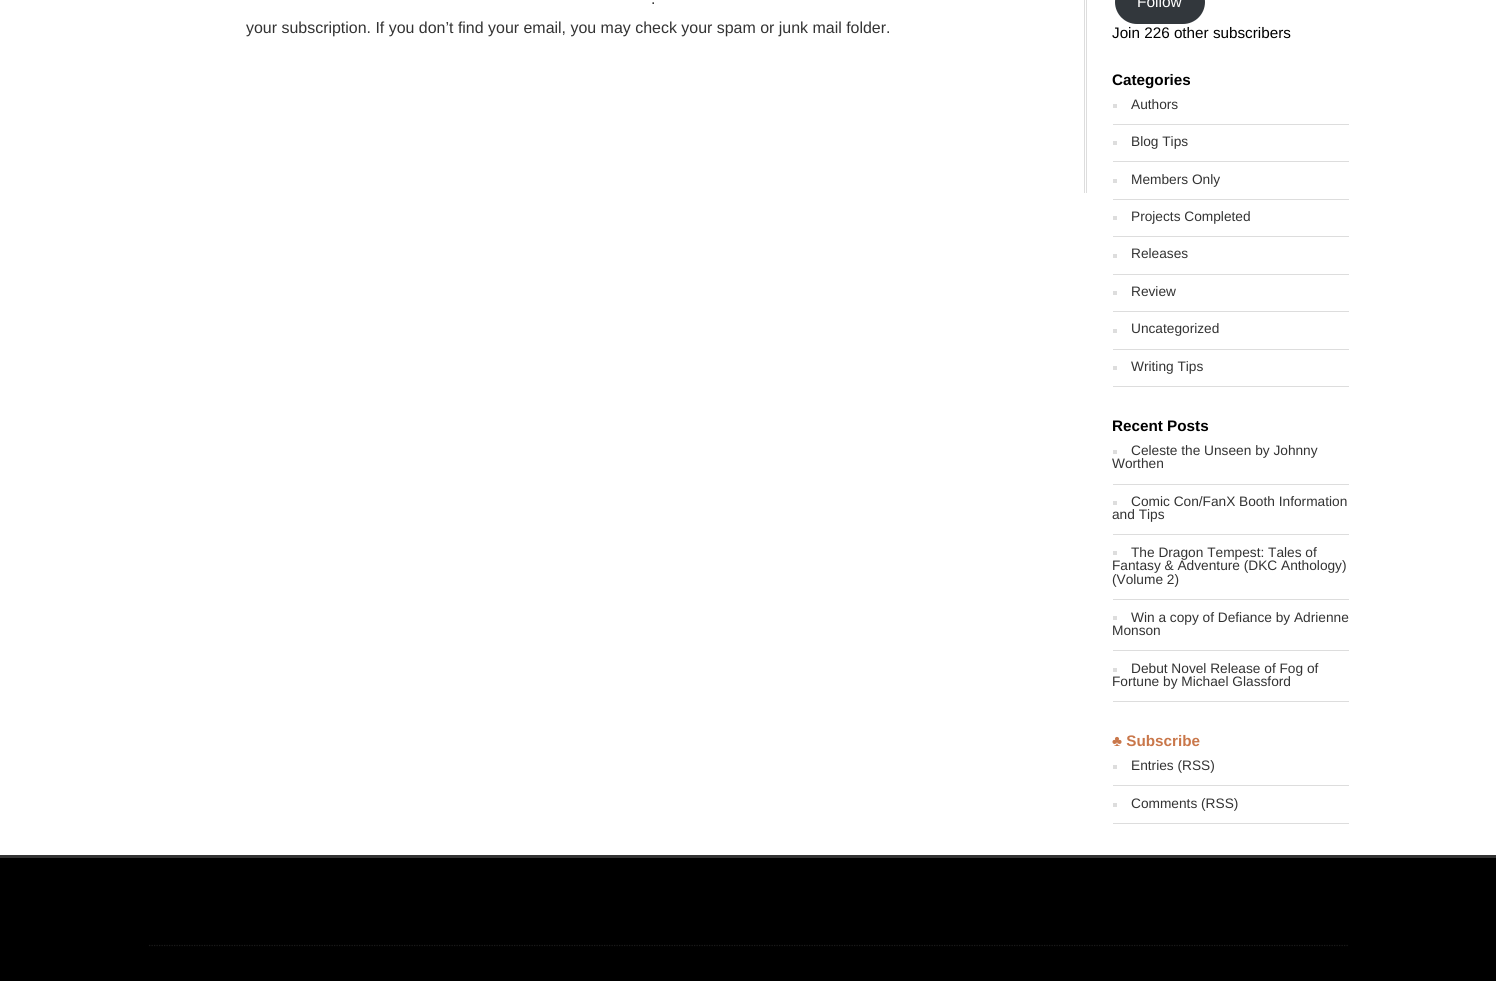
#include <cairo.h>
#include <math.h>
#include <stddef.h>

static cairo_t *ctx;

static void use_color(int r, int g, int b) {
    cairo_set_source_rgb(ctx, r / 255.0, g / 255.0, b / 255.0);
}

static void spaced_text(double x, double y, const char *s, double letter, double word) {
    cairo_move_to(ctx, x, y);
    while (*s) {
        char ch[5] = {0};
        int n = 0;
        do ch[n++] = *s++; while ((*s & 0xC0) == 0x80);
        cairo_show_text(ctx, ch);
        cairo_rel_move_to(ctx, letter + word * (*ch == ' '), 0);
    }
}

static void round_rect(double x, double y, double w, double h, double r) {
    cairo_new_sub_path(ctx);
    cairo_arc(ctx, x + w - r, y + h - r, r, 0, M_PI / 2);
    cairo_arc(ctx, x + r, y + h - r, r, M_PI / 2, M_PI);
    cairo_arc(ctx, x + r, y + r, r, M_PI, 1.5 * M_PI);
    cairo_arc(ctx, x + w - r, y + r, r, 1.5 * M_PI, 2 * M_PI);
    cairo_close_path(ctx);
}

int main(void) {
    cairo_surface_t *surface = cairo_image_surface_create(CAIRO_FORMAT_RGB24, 1496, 981);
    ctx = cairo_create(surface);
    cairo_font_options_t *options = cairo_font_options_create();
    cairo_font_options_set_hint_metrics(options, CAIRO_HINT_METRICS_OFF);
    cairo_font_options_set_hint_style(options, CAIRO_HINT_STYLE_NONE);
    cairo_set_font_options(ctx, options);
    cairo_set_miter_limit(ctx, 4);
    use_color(255, 255, 255);
    cairo_paint(ctx);
    use_color(221, 221, 221);
    cairo_rectangle(ctx, 1084, 0, 1, 193);
    cairo_fill(ctx);
    cairo_rectangle(ctx, 1086, 0, 1, 193);
    cairo_fill(ctx);
    cairo_select_font_face(ctx, "Liberation Sans", CAIRO_FONT_SLANT_NORMAL, CAIRO_FONT_WEIGHT_NORMAL);
    cairo_set_font_size(ctx, 15.95);
    use_color(51, 51, 51);
    spaced_text(651, 4, ".", 0, 17);
    cairo_move_to(ctx, 246, 33);
    cairo_show_text(ctx, "your subscription. If you don’t find your email, you may check your spam or junk mail folder.");
    use_color(50, 55, 60);
    round_rect(1115, -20, 90, 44, 22);
    cairo_fill(ctx);
    cairo_set_font_size(ctx, 15.5);
    use_color(255, 255, 255);
    cairo_move_to(ctx, 1137, 7);
    cairo_show_text(ctx, "Follow");
    cairo_set_font_size(ctx, 15.25);
    use_color(0, 0, 0);
    cairo_move_to(ctx, 1112, 38);
    cairo_show_text(ctx, "Join 226 other subscribers");
    cairo_select_font_face(ctx, "Liberation Sans", CAIRO_FONT_SLANT_NORMAL, CAIRO_FONT_WEIGHT_BOLD);
    cairo_move_to(ctx, 1112, 85);
    cairo_show_text(ctx, "Categories");
    use_color(221, 221, 221);
    cairo_rectangle(ctx, 1113, 124, 236, 1);
    cairo_fill(ctx);
    cairo_rectangle(ctx, 1113, 104, 4, 4);
    cairo_fill(ctx);
    cairo_select_font_face(ctx, "Liberation Sans", CAIRO_FONT_SLANT_NORMAL, CAIRO_FONT_WEIGHT_NORMAL);
    cairo_set_font_size(ctx, 13.7);
    use_color(51, 51, 51);
    cairo_move_to(ctx, 1131, 109);
    cairo_show_text(ctx, "Authors");
    use_color(221, 221, 221);
    cairo_rectangle(ctx, 1113, 161, 236, 1);
    cairo_fill(ctx);
    cairo_rectangle(ctx, 1113, 141, 4, 4);
    cairo_fill(ctx);
    use_color(51, 51, 51);
    cairo_move_to(ctx, 1131, 146);
    cairo_show_text(ctx, "Blog Tips");
    use_color(221, 221, 221);
    cairo_rectangle(ctx, 1113, 199, 236, 1);
    cairo_fill(ctx);
    cairo_rectangle(ctx, 1113, 179, 4, 4);
    cairo_fill(ctx);
    use_color(51, 51, 51);
    cairo_move_to(ctx, 1131, 184);
    cairo_show_text(ctx, "Members Only");
    use_color(221, 221, 221);
    cairo_rectangle(ctx, 1113, 236, 236, 1);
    cairo_fill(ctx);
    cairo_rectangle(ctx, 1113, 216, 4, 4);
    cairo_fill(ctx);
    use_color(51, 51, 51);
    cairo_move_to(ctx, 1131, 221);
    cairo_show_text(ctx, "Projects Completed");
    use_color(221, 221, 221);
    cairo_rectangle(ctx, 1113, 274, 236, 1);
    cairo_fill(ctx);
    cairo_rectangle(ctx, 1113, 254, 4, 4);
    cairo_fill(ctx);
    use_color(51, 51, 51);
    cairo_move_to(ctx, 1131, 258);
    cairo_show_text(ctx, "Releases");
    use_color(221, 221, 221);
    cairo_rectangle(ctx, 1113, 311, 236, 1);
    cairo_fill(ctx);
    cairo_rectangle(ctx, 1113, 291, 4, 4);
    cairo_fill(ctx);
    use_color(51, 51, 51);
    cairo_move_to(ctx, 1131, 296);
    cairo_show_text(ctx, "Review");
    use_color(221, 221, 221);
    cairo_rectangle(ctx, 1113, 349, 236, 1);
    cairo_fill(ctx);
    cairo_rectangle(ctx, 1113, 329, 4, 4);
    cairo_fill(ctx);
    use_color(51, 51, 51);
    cairo_move_to(ctx, 1131, 333);
    cairo_show_text(ctx, "Uncategorized");
    use_color(221, 221, 221);
    cairo_rectangle(ctx, 1113, 386, 236, 1);
    cairo_fill(ctx);
    cairo_rectangle(ctx, 1113, 366, 4, 4);
    cairo_fill(ctx);
    use_color(51, 51, 51);
    cairo_move_to(ctx, 1131, 371);
    cairo_show_text(ctx, "Writing Tips");
    cairo_select_font_face(ctx, "Liberation Sans", CAIRO_FONT_SLANT_NORMAL, CAIRO_FONT_WEIGHT_BOLD);
    cairo_set_font_size(ctx, 15.25);
    use_color(0, 0, 0);
    cairo_move_to(ctx, 1112, 431);
    cairo_show_text(ctx, "Recent Posts");
    use_color(221, 221, 221);
    cairo_rectangle(ctx, 1113, 484, 236, 1);
    cairo_fill(ctx);
    cairo_rectangle(ctx, 1113, 450, 4, 4);
    cairo_fill(ctx);
    cairo_select_font_face(ctx, "Liberation Sans", CAIRO_FONT_SLANT_NORMAL, CAIRO_FONT_WEIGHT_NORMAL);
    cairo_set_font_size(ctx, 13.7);
    use_color(51, 51, 51);
    cairo_move_to(ctx, 1131, 455);
    cairo_show_text(ctx, "Celeste the Unseen by Johnny");
    cairo_move_to(ctx, 1112, 468);
    cairo_show_text(ctx, "Worthen");
    use_color(221, 221, 221);
    cairo_rectangle(ctx, 1113, 534, 236, 1);
    cairo_fill(ctx);
    cairo_rectangle(ctx, 1113, 501, 4, 4);
    cairo_fill(ctx);
    use_color(51, 51, 51);
    cairo_move_to(ctx, 1131, 506);
    cairo_show_text(ctx, "Comic Con/FanX Booth Information");
    cairo_move_to(ctx, 1112, 519);
    cairo_show_text(ctx, "and Tips");
    use_color(221, 221, 221);
    cairo_rectangle(ctx, 1113, 599, 236, 1);
    cairo_fill(ctx);
    cairo_rectangle(ctx, 1113, 551, 4, 4);
    cairo_fill(ctx);
    use_color(51, 51, 51);
    cairo_move_to(ctx, 1131, 557);
    cairo_show_text(ctx, "The Dragon Tempest: Tales of");
    cairo_move_to(ctx, 1112, 570);
    cairo_show_text(ctx, "Fantasy & Adventure (DKC Anthology)");
    cairo_move_to(ctx, 1112, 584);
    cairo_show_text(ctx, "(Volume 2)");
    use_color(221, 221, 221);
    cairo_rectangle(ctx, 1113, 650, 236, 1);
    cairo_fill(ctx);
    cairo_rectangle(ctx, 1113, 616, 4, 4);
    cairo_fill(ctx);
    use_color(51, 51, 51);
    cairo_move_to(ctx, 1131, 622);
    cairo_show_text(ctx, "Win a copy of Defiance by Adrienne");
    cairo_move_to(ctx, 1112, 635);
    cairo_show_text(ctx, "Monson");
    use_color(221, 221, 221);
    cairo_rectangle(ctx, 1113, 701, 236, 1);
    cairo_fill(ctx);
    cairo_rectangle(ctx, 1113, 668, 4, 4);
    cairo_fill(ctx);
    use_color(51, 51, 51);
    cairo_move_to(ctx, 1131, 673);
    cairo_show_text(ctx, "Debut Novel Release of Fog of");
    cairo_move_to(ctx, 1112, 686);
    cairo_show_text(ctx, "Fortune by Michael Glassford");
    cairo_select_font_face(ctx, "Liberation Sans", CAIRO_FONT_SLANT_NORMAL, CAIRO_FONT_WEIGHT_BOLD);
    cairo_set_font_size(ctx, 15.25);
    use_color(201, 119, 74);
    cairo_move_to(ctx, 1112, 746);
    cairo_show_text(ctx, "♣ Subscribe");
    use_color(221, 221, 221);
    cairo_rectangle(ctx, 1113, 785, 236, 1);
    cairo_fill(ctx);
    cairo_rectangle(ctx, 1113, 765, 4, 4);
    cairo_fill(ctx);
    cairo_select_font_face(ctx, "Liberation Sans", CAIRO_FONT_SLANT_NORMAL, CAIRO_FONT_WEIGHT_NORMAL);
    cairo_set_font_size(ctx, 13.7);
    use_color(51, 51, 51);
    cairo_move_to(ctx, 1131, 770);
    cairo_show_text(ctx, "Entries (RSS)");
    use_color(221, 221, 221);
    cairo_rectangle(ctx, 1113, 823, 236, 1);
    cairo_fill(ctx);
    cairo_rectangle(ctx, 1113, 803, 4, 4);
    cairo_fill(ctx);
    use_color(51, 51, 51);
    cairo_move_to(ctx, 1131, 808);
    cairo_show_text(ctx, "Comments (RSS)");
    use_color(0, 0, 0);
    cairo_rectangle(ctx, 0, 858, 1496, 123);
    cairo_fill(ctx);
    use_color(51, 51, 51);
    cairo_rectangle(ctx, 0, 855, 1496, 3);
    cairo_fill(ctx);
    cairo_new_path(ctx);
    cairo_move_to(ctx, 149, 945.5);
    cairo_line_to(ctx, 1349, 945.5);
    use_color(26, 26, 26);
    cairo_set_line_width(ctx, 1.2);
    cairo_set_dash(ctx, (double[]){1.25, 1.25}, 2, 0);
    cairo_stroke(ctx);
    cairo_surface_write_to_png(surface, "result.png");
    cairo_font_options_destroy(options);
    cairo_destroy(ctx);
    cairo_surface_destroy(surface);
    return 0;
}
